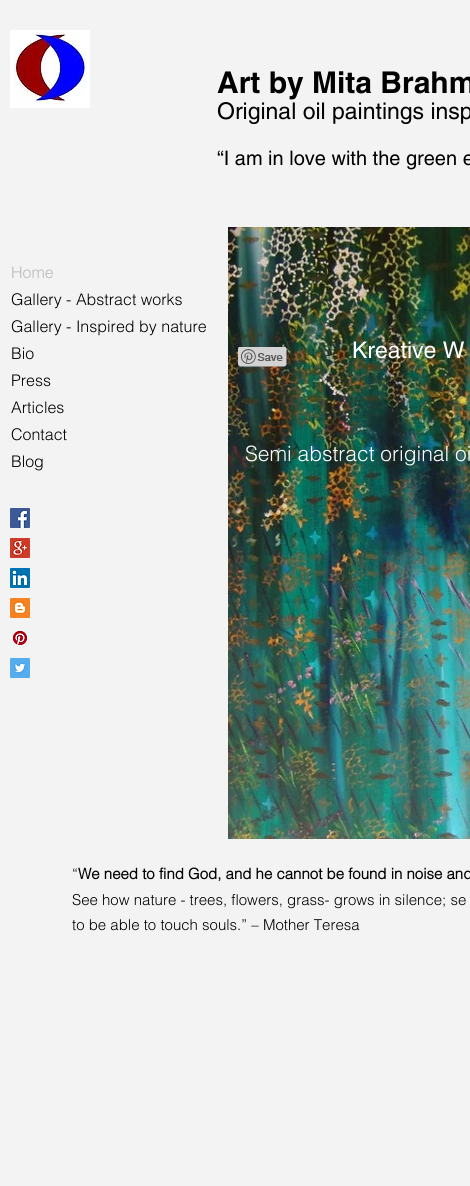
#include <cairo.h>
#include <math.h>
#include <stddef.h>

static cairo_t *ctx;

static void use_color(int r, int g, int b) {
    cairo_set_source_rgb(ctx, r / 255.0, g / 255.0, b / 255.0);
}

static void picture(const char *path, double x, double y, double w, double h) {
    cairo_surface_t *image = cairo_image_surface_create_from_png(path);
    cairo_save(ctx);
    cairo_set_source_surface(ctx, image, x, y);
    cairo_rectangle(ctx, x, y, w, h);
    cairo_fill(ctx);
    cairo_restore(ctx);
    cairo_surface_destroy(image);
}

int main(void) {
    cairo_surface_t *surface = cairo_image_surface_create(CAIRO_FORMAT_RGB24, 470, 1186);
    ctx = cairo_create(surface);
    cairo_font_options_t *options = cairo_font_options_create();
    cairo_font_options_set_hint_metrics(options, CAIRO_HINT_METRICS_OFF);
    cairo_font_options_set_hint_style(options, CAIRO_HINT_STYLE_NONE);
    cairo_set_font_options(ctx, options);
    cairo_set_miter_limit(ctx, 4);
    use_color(243, 243, 243);
    cairo_paint(ctx);
    use_color(255, 255, 255);
    cairo_rectangle(ctx, 10, 30, 80, 78);
    cairo_fill(ctx);
    picture("img1.png", 14, 32, 72, 73);
    cairo_select_font_face(ctx, "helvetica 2", CAIRO_FONT_SLANT_NORMAL, CAIRO_FONT_WEIGHT_BOLD);
    cairo_set_font_size(ctx, 30);
    use_color(0, 0, 0);
    cairo_move_to(ctx, 217, 93);
    cairo_show_text(ctx, "Art by Mita Brahm");
    cairo_select_font_face(ctx, "helvetica", CAIRO_FONT_SLANT_NORMAL, CAIRO_FONT_WEIGHT_NORMAL);
    cairo_set_font_size(ctx, 23);
    cairo_move_to(ctx, 217, 119);
    cairo_show_text(ctx, "Original oil paintings insp");
    cairo_set_font_size(ctx, 20);
    cairo_move_to(ctx, 217, 165);
    cairo_show_text(ctx, "“I am in love with the green e");
    cairo_select_font_face(ctx, "helvetica Light", CAIRO_FONT_SLANT_NORMAL, CAIRO_FONT_WEIGHT_NORMAL);
    cairo_set_font_size(ctx, 16);
    use_color(185, 185, 185);
    cairo_move_to(ctx, 11, 278);
    cairo_show_text(ctx, "Home");
    use_color(0, 0, 0);
    cairo_move_to(ctx, 11, 305);
    cairo_show_text(ctx, "Gallery - Abstract works");
    cairo_move_to(ctx, 11, 332);
    cairo_show_text(ctx, "Gallery - Inspired by nature");
    cairo_move_to(ctx, 11, 359);
    cairo_show_text(ctx, "Bio");
    cairo_move_to(ctx, 11, 386);
    cairo_show_text(ctx, "Press");
    cairo_move_to(ctx, 11, 413);
    cairo_show_text(ctx, "Articles");
    cairo_move_to(ctx, 11, 440);
    cairo_show_text(ctx, "Contact");
    cairo_move_to(ctx, 11, 467);
    cairo_show_text(ctx, "Blog");
    picture("img2.png", 10, 508, 20, 20);
    picture("img3.png", 10, 538, 20, 20);
    picture("img4.png", 10, 568, 20, 20);
    picture("img5.png", 10, 598, 20, 20);
    picture("img6.png", 11, 629, 18, 18);
    picture("img7.png", 10, 658, 20, 20);
    picture("img8.png", 228, 227, 242, 612);
    picture("img9.png", 238, 347, 49, 20);
    cairo_select_font_face(ctx, "helvetica", CAIRO_FONT_SLANT_NORMAL, CAIRO_FONT_WEIGHT_NORMAL);
    cairo_set_font_size(ctx, 23);
    use_color(255, 255, 255);
    cairo_move_to(ctx, 352, 358);
    cairo_show_text(ctx, "Kreative W");
    cairo_select_font_face(ctx, "helvetica Light", CAIRO_FONT_SLANT_NORMAL, CAIRO_FONT_WEIGHT_NORMAL);
    cairo_set_font_size(ctx, 21);
    cairo_move_to(ctx, 245, 461);
    cairo_show_text(ctx, "Semi abstract original oi");
    cairo_set_font_size(ctx, 15);
    use_color(0, 0, 0);
    cairo_move_to(ctx, 72, 879);
    cairo_show_text(ctx, "“");
    cairo_select_font_face(ctx, "helvetica", CAIRO_FONT_SLANT_NORMAL, CAIRO_FONT_WEIGHT_BOLD);
    cairo_move_to(ctx, 78, 879);
    cairo_show_text(ctx, "We need to find God, and he cannot be found in noise and");
    cairo_select_font_face(ctx, "helvetica Light", CAIRO_FONT_SLANT_NORMAL, CAIRO_FONT_WEIGHT_NORMAL);
    cairo_move_to(ctx, 72, 905);
    cairo_show_text(ctx, "See how nature - trees, flowers, grass- grows in silence; se");
    cairo_move_to(ctx, 72, 930);
    cairo_show_text(ctx, "to be able to touch souls.” – Mother Teresa");
    cairo_surface_write_to_png(surface, "result.png");
    cairo_font_options_destroy(options);
    cairo_destroy(ctx);
    cairo_surface_destroy(surface);
    return 0;
}
